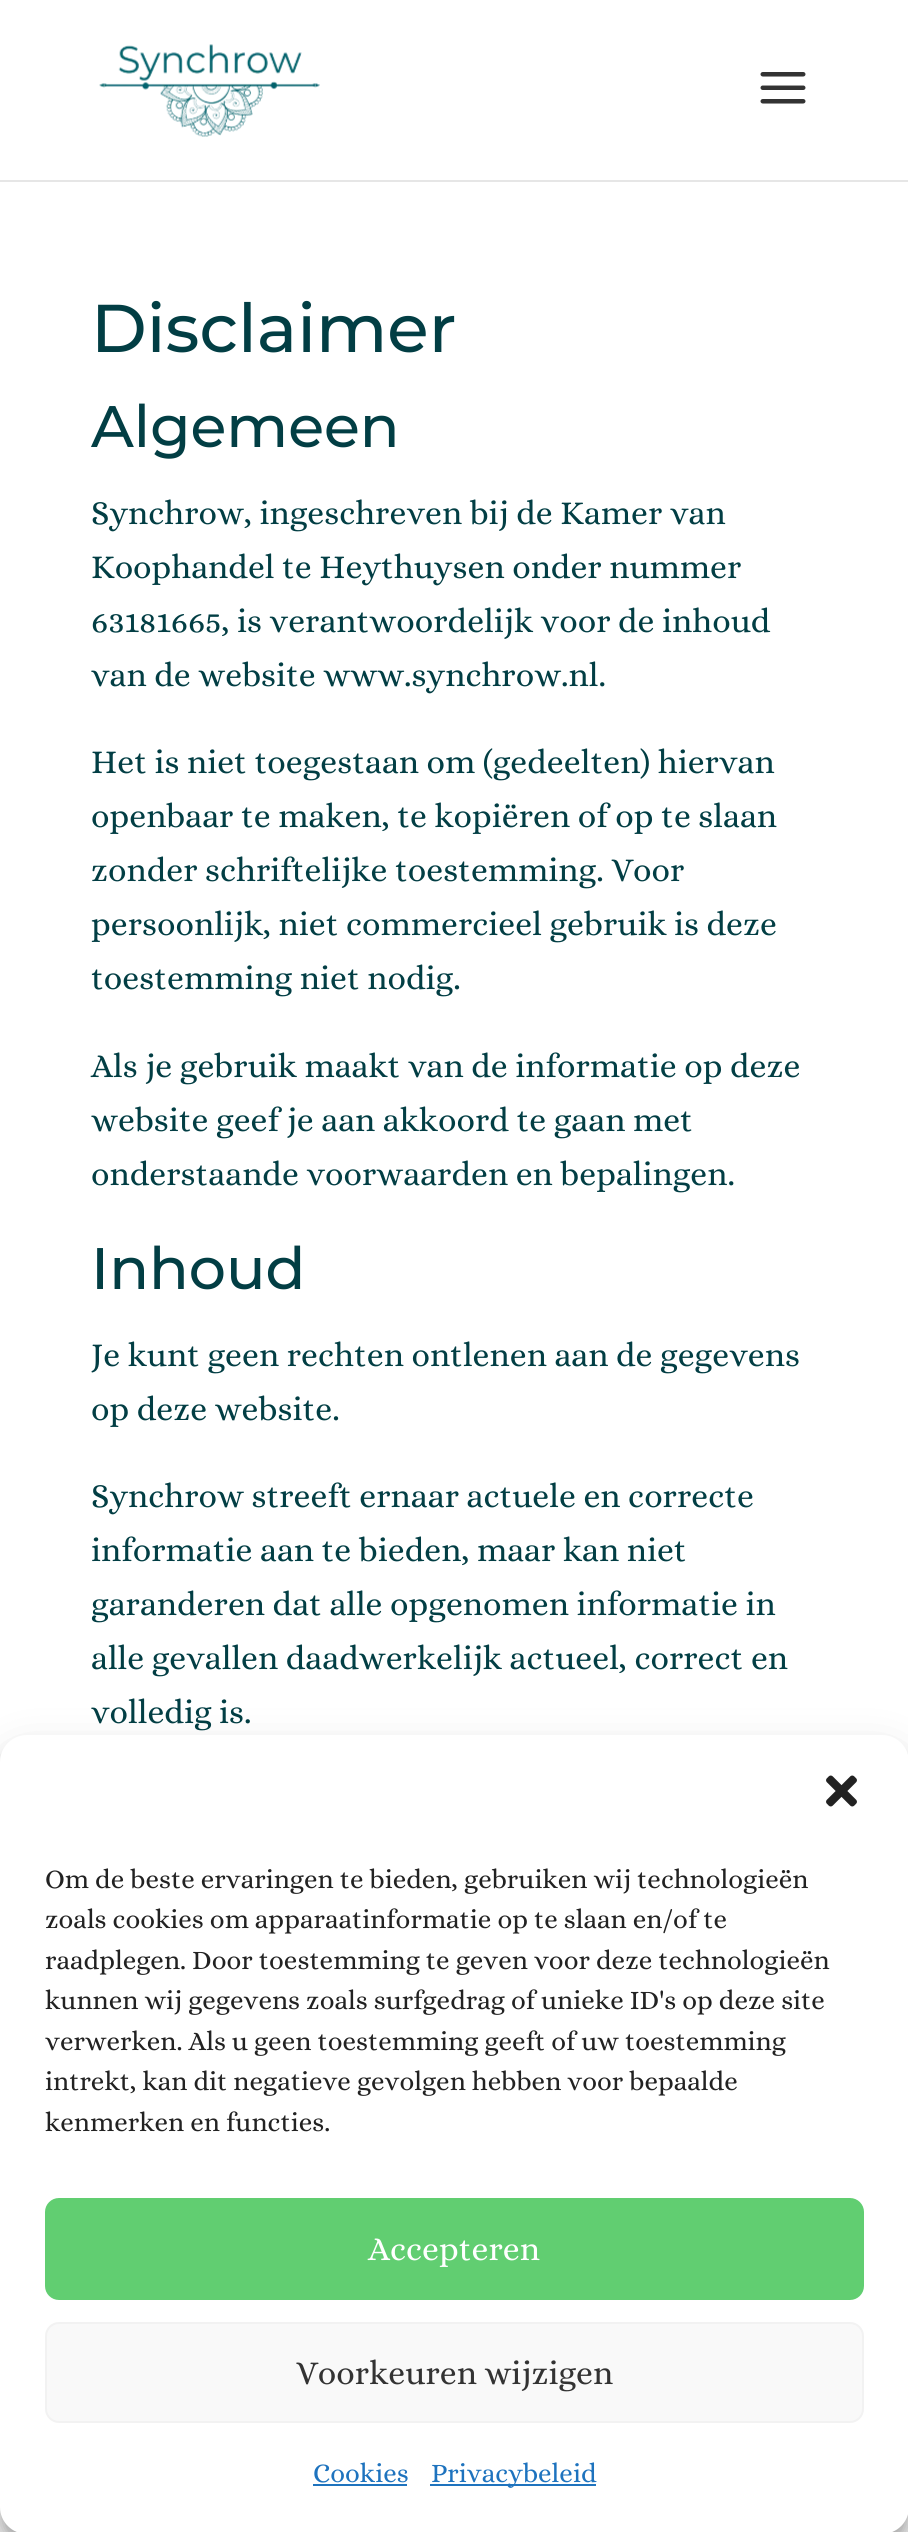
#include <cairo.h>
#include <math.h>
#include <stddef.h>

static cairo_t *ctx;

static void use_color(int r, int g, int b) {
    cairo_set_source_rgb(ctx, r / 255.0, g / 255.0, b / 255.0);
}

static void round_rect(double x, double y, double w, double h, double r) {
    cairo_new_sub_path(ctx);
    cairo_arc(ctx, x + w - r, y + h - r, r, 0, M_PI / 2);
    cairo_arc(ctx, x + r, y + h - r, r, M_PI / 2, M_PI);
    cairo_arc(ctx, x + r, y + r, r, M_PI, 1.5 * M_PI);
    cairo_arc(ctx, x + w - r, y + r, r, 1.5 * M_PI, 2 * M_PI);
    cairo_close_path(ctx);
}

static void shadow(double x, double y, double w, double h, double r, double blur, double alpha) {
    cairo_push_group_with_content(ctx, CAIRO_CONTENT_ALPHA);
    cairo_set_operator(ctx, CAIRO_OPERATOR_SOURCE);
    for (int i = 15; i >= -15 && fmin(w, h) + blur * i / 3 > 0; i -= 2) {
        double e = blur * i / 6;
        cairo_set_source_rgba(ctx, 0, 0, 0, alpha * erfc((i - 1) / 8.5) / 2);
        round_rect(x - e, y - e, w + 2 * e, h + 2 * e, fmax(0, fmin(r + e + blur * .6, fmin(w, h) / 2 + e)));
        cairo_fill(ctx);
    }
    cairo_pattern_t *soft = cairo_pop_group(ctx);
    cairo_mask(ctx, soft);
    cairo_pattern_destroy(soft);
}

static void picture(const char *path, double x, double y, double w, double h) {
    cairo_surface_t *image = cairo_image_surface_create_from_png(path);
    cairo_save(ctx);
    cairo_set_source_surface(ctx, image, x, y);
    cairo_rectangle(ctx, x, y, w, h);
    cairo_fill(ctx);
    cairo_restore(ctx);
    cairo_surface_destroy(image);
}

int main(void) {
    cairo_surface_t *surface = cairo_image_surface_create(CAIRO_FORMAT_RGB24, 908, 2532);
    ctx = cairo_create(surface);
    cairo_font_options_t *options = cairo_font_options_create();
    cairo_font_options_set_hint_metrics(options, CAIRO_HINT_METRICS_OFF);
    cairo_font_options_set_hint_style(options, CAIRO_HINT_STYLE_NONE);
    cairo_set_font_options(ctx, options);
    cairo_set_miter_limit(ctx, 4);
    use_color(255, 255, 255);
    cairo_paint(ctx);
    use_color(230, 230, 230);
    cairo_rectangle(ctx, 0, 180, 908, 2);
    cairo_fill(ctx);
    picture("img1.png", 99, 44, 221, 93);
    picture("img2.png", 760, 72, 46, 32);
    cairo_select_font_face(ctx, "Montserrat Medium", CAIRO_FONT_SLANT_NORMAL, CAIRO_FONT_WEIGHT_NORMAL);
    cairo_set_font_size(ctx, 67.5);
    use_color(2, 62, 68);
    cairo_move_to(ctx, 91, 352);
    cairo_show_text(ctx, "Disclaimer");
    cairo_set_font_size(ctx, 58.5);
    cairo_move_to(ctx, 91, 447);
    cairo_show_text(ctx, "Algemeen");
    cairo_select_font_face(ctx, "Alice", CAIRO_FONT_SLANT_NORMAL, CAIRO_FONT_WEIGHT_NORMAL);
    cairo_set_font_size(ctx, 33.75);
    cairo_move_to(ctx, 91, 524);
    cairo_show_text(ctx, "Synchrow, ingeschreven bij de Kamer van");
    cairo_move_to(ctx, 91, 578);
    cairo_show_text(ctx, "Koophandel te Heythuysen onder nummer");
    cairo_move_to(ctx, 91, 632);
    cairo_show_text(ctx, "63181665, is verantwoordelijk voor de inhoud");
    cairo_move_to(ctx, 91, 686);
    cairo_show_text(ctx, "van de website www.synchrow.nl.");
    cairo_move_to(ctx, 91, 773);
    cairo_show_text(ctx, "Het is niet toegestaan om (gedeelten) hiervan");
    cairo_move_to(ctx, 91, 827);
    cairo_show_text(ctx, "openbaar te maken, te kopiëren of op te slaan");
    cairo_move_to(ctx, 91, 881);
    cairo_show_text(ctx, "zonder schriftelijke toestemming. Voor");
    cairo_move_to(ctx, 91, 935);
    cairo_show_text(ctx, "persoonlijk, niet commercieel gebruik is deze");
    cairo_move_to(ctx, 91, 989);
    cairo_show_text(ctx, "toestemming niet nodig.");
    cairo_move_to(ctx, 91, 1077);
    cairo_show_text(ctx, "Als je gebruik maakt van de informatie op deze");
    cairo_move_to(ctx, 91, 1131);
    cairo_show_text(ctx, "website geef je aan akkoord te gaan met");
    cairo_move_to(ctx, 91, 1185);
    cairo_show_text(ctx, "onderstaande voorwaarden en bepalingen.");
    cairo_select_font_face(ctx, "Montserrat Medium", CAIRO_FONT_SLANT_NORMAL, CAIRO_FONT_WEIGHT_NORMAL);
    cairo_set_font_size(ctx, 58.5);
    cairo_move_to(ctx, 91, 1289);
    cairo_show_text(ctx, "Inhoud");
    cairo_select_font_face(ctx, "Alice", CAIRO_FONT_SLANT_NORMAL, CAIRO_FONT_WEIGHT_NORMAL);
    cairo_set_font_size(ctx, 33.75);
    cairo_move_to(ctx, 91, 1366);
    cairo_show_text(ctx, "Je kunt geen rechten ontlenen aan de gegevens");
    cairo_move_to(ctx, 91, 1420);
    cairo_show_text(ctx, "op deze website.");
    cairo_move_to(ctx, 91, 1507);
    cairo_show_text(ctx, "Synchrow streeft ernaar actuele en correcte");
    cairo_move_to(ctx, 91, 1561);
    cairo_show_text(ctx, "informatie aan te bieden, maar kan niet");
    cairo_move_to(ctx, 91, 1615);
    cairo_show_text(ctx, "garanderen dat alle opgenomen informatie in");
    cairo_move_to(ctx, 91, 1669);
    cairo_show_text(ctx, "alle gevallen daadwerkelijk actueel, correct en");
    cairo_move_to(ctx, 91, 1723);
    cairo_show_text(ctx, "volledig is.");
    use_color(0, 0, 0);
    shadow(0, 1748, 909, 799, 27, 7, 0.23);
    shadow(0, 1757, 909, 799, 27, 22.5, 0.19);
    use_color(255, 255, 255);
    round_rect(0, 1735, 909, 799, 27);
    cairo_fill(ctx);
    picture("img3.png", 826, 1775, 31, 32);
    cairo_set_font_size(ctx, 27);
    use_color(34, 34, 34);
    cairo_move_to(ctx, 45, 1888);
    cairo_show_text(ctx, "Om de beste ervaringen te bieden, gebruiken wij technologieën");
    cairo_move_to(ctx, 45, 1928);
    cairo_show_text(ctx, "zoals cookies om apparaatinformatie op te slaan en/of te");
    cairo_move_to(ctx, 45, 1969);
    cairo_show_text(ctx, "raadplegen. Door toestemming te geven voor deze technologieën");
    cairo_move_to(ctx, 45, 2009);
    cairo_show_text(ctx, "kunnen wij gegevens zoals surfgedrag of unieke ID's op deze site");
    cairo_move_to(ctx, 45, 2050);
    cairo_show_text(ctx, "verwerken. Als u geen toestemming geeft of uw toestemming");
    cairo_move_to(ctx, 45, 2090);
    cairo_show_text(ctx, "intrekt, kan dit negatieve gevolgen hebben voor bepaalde");
    cairo_move_to(ctx, 45, 2131);
    cairo_show_text(ctx, "kenmerken en functies.");
    use_color(97, 206, 113);
    round_rect(46, 2199, 817, 100, 13);
    cairo_fill_preserve(ctx);
    cairo_stroke(ctx);
    cairo_set_font_size(ctx, 33.75);
    use_color(255, 255, 255);
    cairo_move_to(ctx, 368, 2260);
    cairo_show_text(ctx, "Accepteren");
    use_color(249, 249, 249);
    round_rect(46, 2323, 817, 99, 13);
    cairo_fill_preserve(ctx);
    use_color(242, 242, 242);
    cairo_stroke(ctx);
    use_color(51, 51, 51);
    cairo_move_to(ctx, 296, 2384);
    cairo_show_text(ctx, "Voorkeuren wijzigen");
    cairo_set_font_size(ctx, 27);
    use_color(30, 115, 190);
    cairo_move_to(ctx, 313, 2482);
    cairo_show_text(ctx, "Cookies");
    cairo_rectangle(ctx, 313, 2484, 94, 2);
    cairo_fill(ctx);
    cairo_rectangle(ctx, 430, 2484, 166, 2);
    cairo_fill(ctx);
    cairo_move_to(ctx, 431, 2482);
    cairo_show_text(ctx, "Privacybeleid");
    cairo_surface_write_to_png(surface, "result.png");
    cairo_font_options_destroy(options);
    cairo_destroy(ctx);
    cairo_surface_destroy(surface);
    return 0;
}
